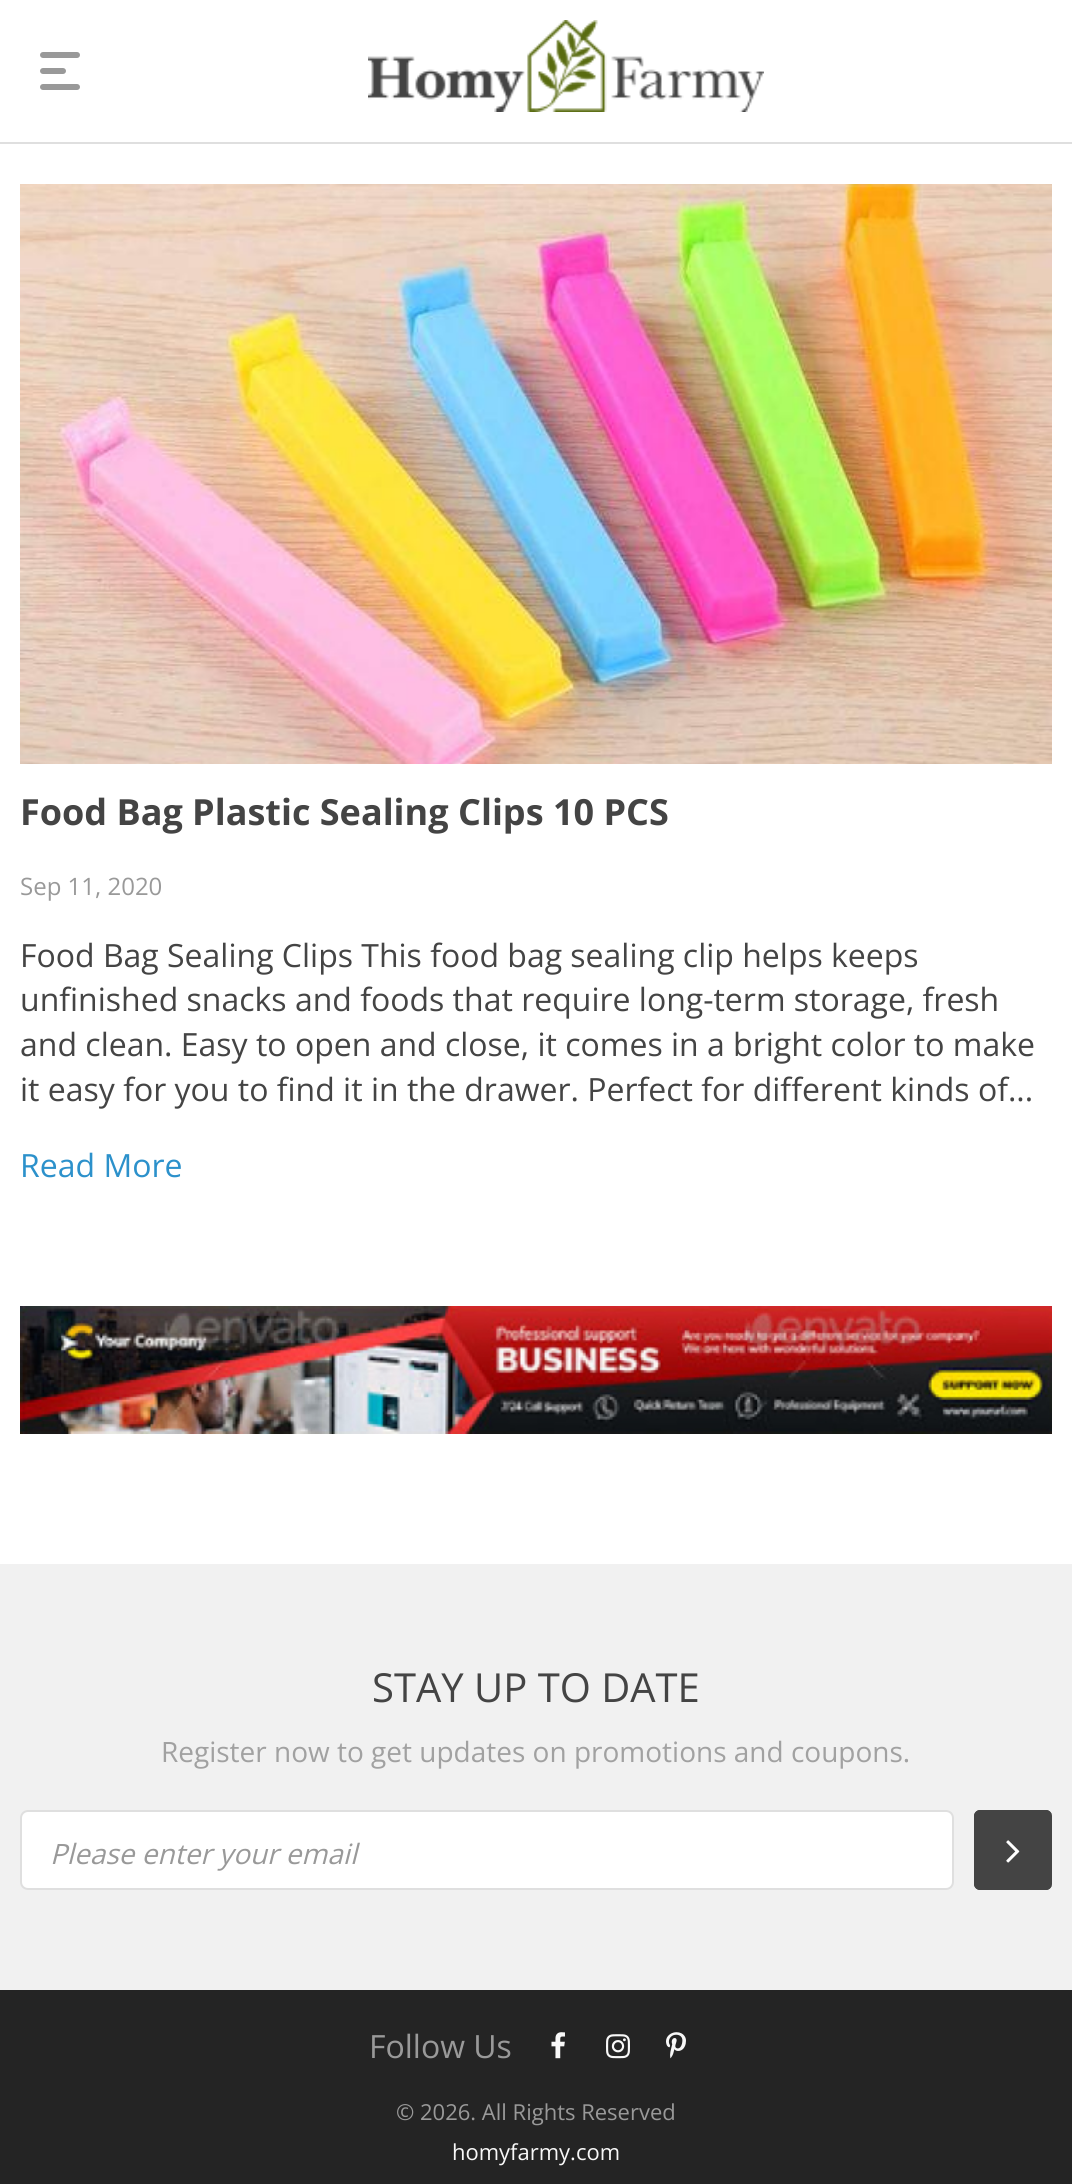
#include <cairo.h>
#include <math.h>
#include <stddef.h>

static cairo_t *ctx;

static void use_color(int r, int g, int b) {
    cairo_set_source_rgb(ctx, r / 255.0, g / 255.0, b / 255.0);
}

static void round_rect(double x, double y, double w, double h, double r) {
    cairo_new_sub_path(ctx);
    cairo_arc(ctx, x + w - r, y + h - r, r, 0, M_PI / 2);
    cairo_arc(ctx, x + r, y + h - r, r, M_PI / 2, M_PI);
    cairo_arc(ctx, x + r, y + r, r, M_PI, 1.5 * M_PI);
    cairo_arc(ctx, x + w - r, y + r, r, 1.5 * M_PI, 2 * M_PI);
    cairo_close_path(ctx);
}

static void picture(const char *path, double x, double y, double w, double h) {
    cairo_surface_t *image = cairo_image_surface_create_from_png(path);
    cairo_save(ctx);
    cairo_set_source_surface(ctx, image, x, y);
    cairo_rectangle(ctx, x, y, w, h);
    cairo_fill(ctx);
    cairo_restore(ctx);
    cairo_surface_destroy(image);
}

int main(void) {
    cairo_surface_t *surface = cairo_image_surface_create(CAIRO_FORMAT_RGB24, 1072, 2184);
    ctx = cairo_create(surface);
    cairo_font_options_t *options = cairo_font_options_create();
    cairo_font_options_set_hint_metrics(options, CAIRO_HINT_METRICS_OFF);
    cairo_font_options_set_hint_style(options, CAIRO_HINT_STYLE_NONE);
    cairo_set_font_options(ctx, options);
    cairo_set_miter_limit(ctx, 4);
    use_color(255, 255, 255);
    cairo_paint(ctx);
    use_color(223, 223, 223);
    cairo_rectangle(ctx, 0, 142, 1072, 2);
    cairo_fill(ctx);
    use_color(153, 153, 153);
    round_rect(40, 52, 40, 6, 3);
    cairo_fill(ctx);
    round_rect(40, 68, 26, 6, 3);
    cairo_fill(ctx);
    round_rect(40, 84, 40, 6, 3);
    cairo_fill(ctx);
    picture("img1.png", 368, 20, 396, 92);
    picture("img2.png", 20, 184, 1032, 580);
    cairo_select_font_face(ctx, "Open Sans", CAIRO_FONT_SLANT_NORMAL, CAIRO_FONT_WEIGHT_BOLD);
    cairo_set_font_size(ctx, 36);
    use_color(68, 68, 68);
    cairo_move_to(ctx, 20, 825);
    cairo_show_text(ctx, "Food Bag Plastic Sealing Clips 10 PCS");
    cairo_select_font_face(ctx, "Open Sans", CAIRO_FONT_SLANT_NORMAL, CAIRO_FONT_WEIGHT_NORMAL);
    cairo_set_font_size(ctx, 24);
    use_color(153, 153, 153);
    cairo_move_to(ctx, 20, 895);
    cairo_show_text(ctx, "Sep 11, 2020");
    cairo_set_font_size(ctx, 32);
    use_color(68, 68, 68);
    cairo_move_to(ctx, 20, 967);
    cairo_show_text(ctx, "Food Bag Sealing Clips This food bag sealing clip helps keeps");
    cairo_move_to(ctx, 20, 1011);
    cairo_show_text(ctx, "unfinished snacks and foods that require long-term storage, fresh");
    cairo_move_to(ctx, 20, 1056);
    cairo_show_text(ctx, "and clean. Easy to open and close, it comes in a bright color to make");
    cairo_move_to(ctx, 20, 1101);
    cairo_show_text(ctx, "it easy for you to find it in the drawer. Perfect for different kinds of...");
    use_color(44, 145, 203);
    cairo_move_to(ctx, 20, 1177);
    cairo_show_text(ctx, "Read More");
    picture("img3.png", 20, 1306, 1032, 128);
    use_color(241, 241, 241);
    cairo_rectangle(ctx, 0, 1564, 1072, 426);
    cairo_fill(ctx);
    cairo_set_font_size(ctx, 40);
    use_color(68, 68, 68);
    cairo_move_to(ctx, 372, 1702);
    cairo_show_text(ctx, "STAY UP TO DATE");
    cairo_set_font_size(ctx, 28);
    use_color(161, 161, 161);
    cairo_move_to(ctx, 161, 1762);
    cairo_show_text(ctx, "Register now to get updates on promotions and coupons.");
    use_color(255, 255, 255);
    round_rect(21, 1811, 932, 78, 7);
    cairo_fill_preserve(ctx);
    use_color(223, 223, 223);
    cairo_stroke(ctx);
    cairo_save(ctx);
    round_rect(974, 1810, 78, 80, 6);
    cairo_clip(ctx);
    use_color(68, 68, 68);
    round_rect(974, 1810, 80, 80, 6);
    cairo_fill(ctx);
    cairo_restore(ctx);
    use_color(68, 68, 68);
    cairo_new_path(ctx);
    cairo_move_to(ctx, 980, 1810);
    cairo_curve_to(ctx, 977, 1810, 974, 1813, 974, 1816);
    cairo_line_to(ctx, 974, 1884);
    cairo_curve_to(ctx, 974, 1887, 977, 1890, 980, 1890);
    cairo_line_to(ctx, 1046, 1890);
    cairo_curve_to(ctx, 1049, 1890, 1052, 1887, 1052, 1884);
    cairo_curve_to(ctx, 1052, 1886, 1050, 1888, 1048, 1888);
    cairo_line_to(ctx, 980, 1888);
    cairo_curve_to(ctx, 978, 1888, 976, 1886, 976, 1884);
    cairo_line_to(ctx, 976, 1816);
    cairo_curve_to(ctx, 976, 1814, 978, 1812, 980, 1812);
    cairo_line_to(ctx, 1048, 1812);
    cairo_curve_to(ctx, 1050, 1812, 1052, 1814, 1052, 1816);
    cairo_curve_to(ctx, 1052, 1813, 1049, 1810, 1046, 1810);
    cairo_close_path(ctx);
    cairo_fill(ctx);
    picture("img4.png", 1006, 1840, 14, 23);
    cairo_select_font_face(ctx, "Open Sans", CAIRO_FONT_SLANT_ITALIC, CAIRO_FONT_WEIGHT_NORMAL);
    use_color(153, 153, 153);
    cairo_move_to(ctx, 50, 1864);
    cairo_show_text(ctx, "Please enter your email");
    use_color(36, 36, 36);
    cairo_rectangle(ctx, 0, 1990, 1072, 194);
    cairo_fill(ctx);
    cairo_select_font_face(ctx, "Open Sans", CAIRO_FONT_SLANT_NORMAL, CAIRO_FONT_WEIGHT_NORMAL);
    cairo_set_font_size(ctx, 32);
    use_color(153, 153, 153);
    cairo_move_to(ctx, 369, 2058);
    cairo_show_text(ctx, "Follow Us");
    picture("img5.png", 551, 2032, 14, 27);
    picture("img6.png", 606, 2034, 24, 25);
    picture("img7.png", 666, 2032, 20, 27);
    cairo_set_font_size(ctx, 22);
    cairo_move_to(ctx, 396, 2120);
    cairo_show_text(ctx, "© 2026. All Rights Reserved");
    use_color(248, 248, 248);
    cairo_move_to(ctx, 452, 2160);
    cairo_show_text(ctx, "homyfarmy.com");
    cairo_surface_write_to_png(surface, "result.png");
    cairo_font_options_destroy(options);
    cairo_destroy(ctx);
    cairo_surface_destroy(surface);
    return 0;
}
